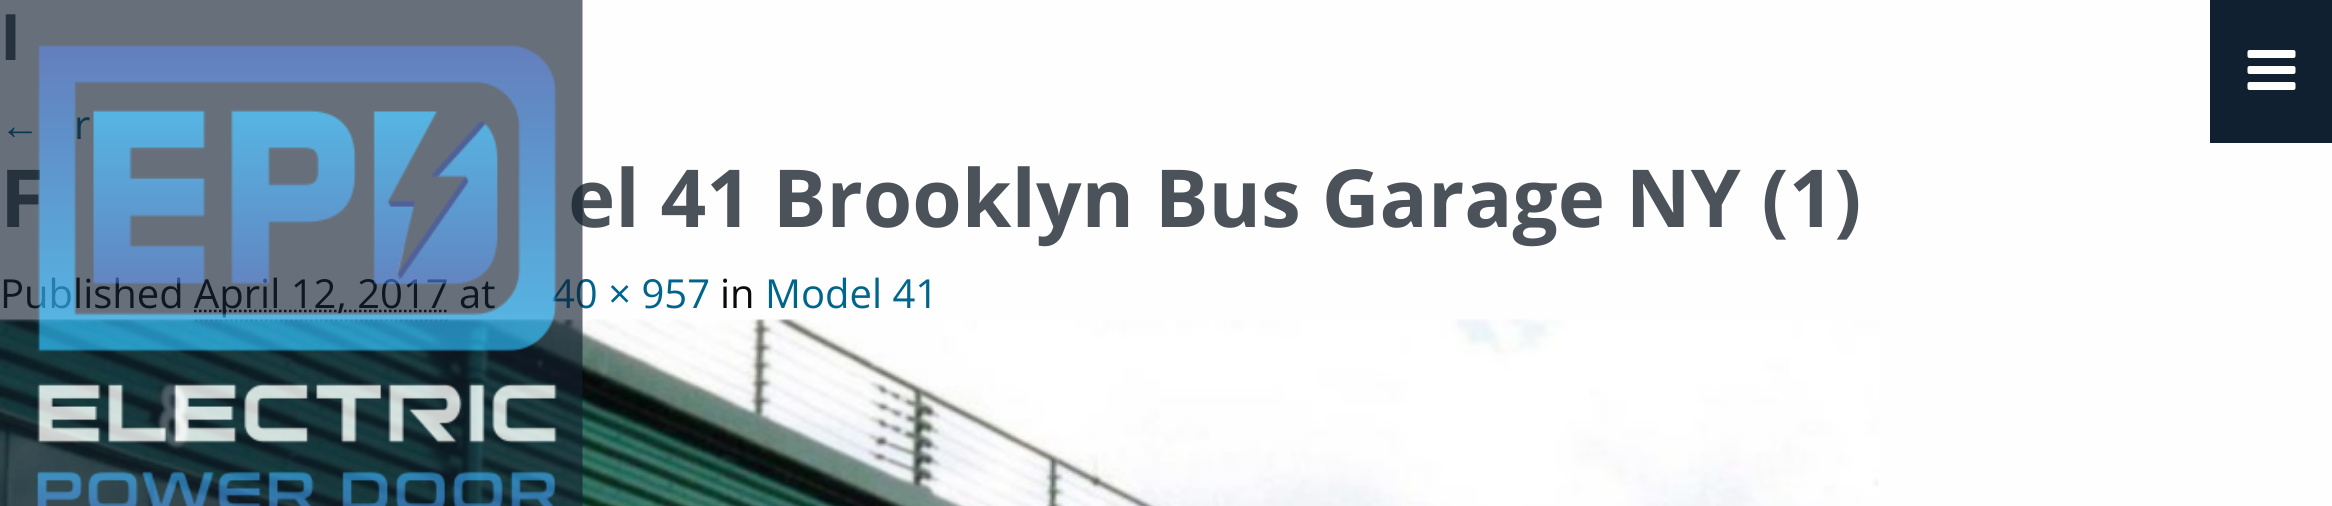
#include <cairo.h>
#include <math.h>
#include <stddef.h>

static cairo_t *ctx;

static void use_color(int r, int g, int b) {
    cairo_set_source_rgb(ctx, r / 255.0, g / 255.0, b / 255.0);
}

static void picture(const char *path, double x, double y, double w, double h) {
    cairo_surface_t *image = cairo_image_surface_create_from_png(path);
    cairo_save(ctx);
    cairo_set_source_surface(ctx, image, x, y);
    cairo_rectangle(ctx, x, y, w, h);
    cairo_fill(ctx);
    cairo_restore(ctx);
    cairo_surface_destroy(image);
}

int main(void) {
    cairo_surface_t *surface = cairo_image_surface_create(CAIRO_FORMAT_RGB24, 2332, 506);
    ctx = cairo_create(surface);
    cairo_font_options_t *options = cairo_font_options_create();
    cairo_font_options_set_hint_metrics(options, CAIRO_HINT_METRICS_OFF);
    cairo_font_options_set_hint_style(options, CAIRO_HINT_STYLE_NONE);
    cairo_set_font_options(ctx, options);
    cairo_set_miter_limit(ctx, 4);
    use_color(254, 254, 254);
    cairo_paint(ctx);
    cairo_select_font_face(ctx, "Open Sans", CAIRO_FONT_SLANT_NORMAL, CAIRO_FONT_WEIGHT_BOLD);
    cairo_set_font_size(ctx, 64);
    use_color(76, 82, 90);
    cairo_move_to(ctx, 0, 60);
    cairo_show_text(ctx, "I");
    cairo_select_font_face(ctx, "Liberation Sans", CAIRO_FONT_SLANT_NORMAL, CAIRO_FONT_WEIGHT_NORMAL);
    cairo_set_font_size(ctx, 40);
    use_color(0, 101, 141);
    cairo_move_to(ctx, 0, 139);
    cairo_show_text(ctx, "←");
    cairo_select_font_face(ctx, "Open Sans", CAIRO_FONT_SLANT_NORMAL, CAIRO_FONT_WEIGHT_NORMAL);
    cairo_move_to(ctx, 74, 139);
    cairo_show_text(ctx, "r");
    cairo_select_font_face(ctx, "Open Sans", CAIRO_FONT_SLANT_NORMAL, CAIRO_FONT_WEIGHT_BOLD);
    cairo_set_font_size(ctx, 80);
    use_color(76, 82, 90);
    cairo_move_to(ctx, 0, 227);
    cairo_show_text(ctx, "F");
    cairo_move_to(ctx, 568, 227);
    cairo_show_text(ctx, "el 41 Brooklyn Bus Garage NY (1)");
    cairo_select_font_face(ctx, "Open Sans", CAIRO_FONT_SLANT_NORMAL, CAIRO_FONT_WEIGHT_NORMAL);
    cairo_set_font_size(ctx, 40);
    use_color(10, 10, 10);
    cairo_move_to(ctx, 0, 308);
    cairo_show_text(ctx, "Published");
    cairo_new_path(ctx);
    cairo_move_to(ctx, 194, 311);
    cairo_line_to(ctx, 449, 311);
    cairo_set_line_width(ctx, 2.5);
    cairo_set_dash(ctx, (double[]){2.5, 2.5}, 2, 0);
    cairo_stroke(ctx);
    cairo_move_to(ctx, 194, 308);
    cairo_show_text(ctx, "April 12, 2017 at");
    cairo_new_path(ctx);
    cairo_move_to(ctx, 195, 321);
    cairo_line_to(ctx, 450, 321);
    cairo_stroke(ctx);
    use_color(0, 101, 141);
    cairo_move_to(ctx, 552, 308);
    cairo_show_text(ctx, "40 × 957");
    picture("img3.png", 0, 319, 1879, 187);
    picture("img1.png", 0, 0, 583, 506);
    use_color(17, 32, 48);
    cairo_rectangle(ctx, 2210, 0, 122, 143);
    cairo_fill(ctx);
    picture("img2.png", 2247, 50, 49, 40);
    use_color(10, 10, 10);
    cairo_move_to(ctx, 720, 308);
    cairo_show_text(ctx, "in");
    use_color(0, 101, 141);
    cairo_move_to(ctx, 765, 308);
    cairo_show_text(ctx, "Model 41");
    cairo_surface_write_to_png(surface, "result.png");
    cairo_font_options_destroy(options);
    cairo_destroy(ctx);
    cairo_surface_destroy(surface);
    return 0;
}
